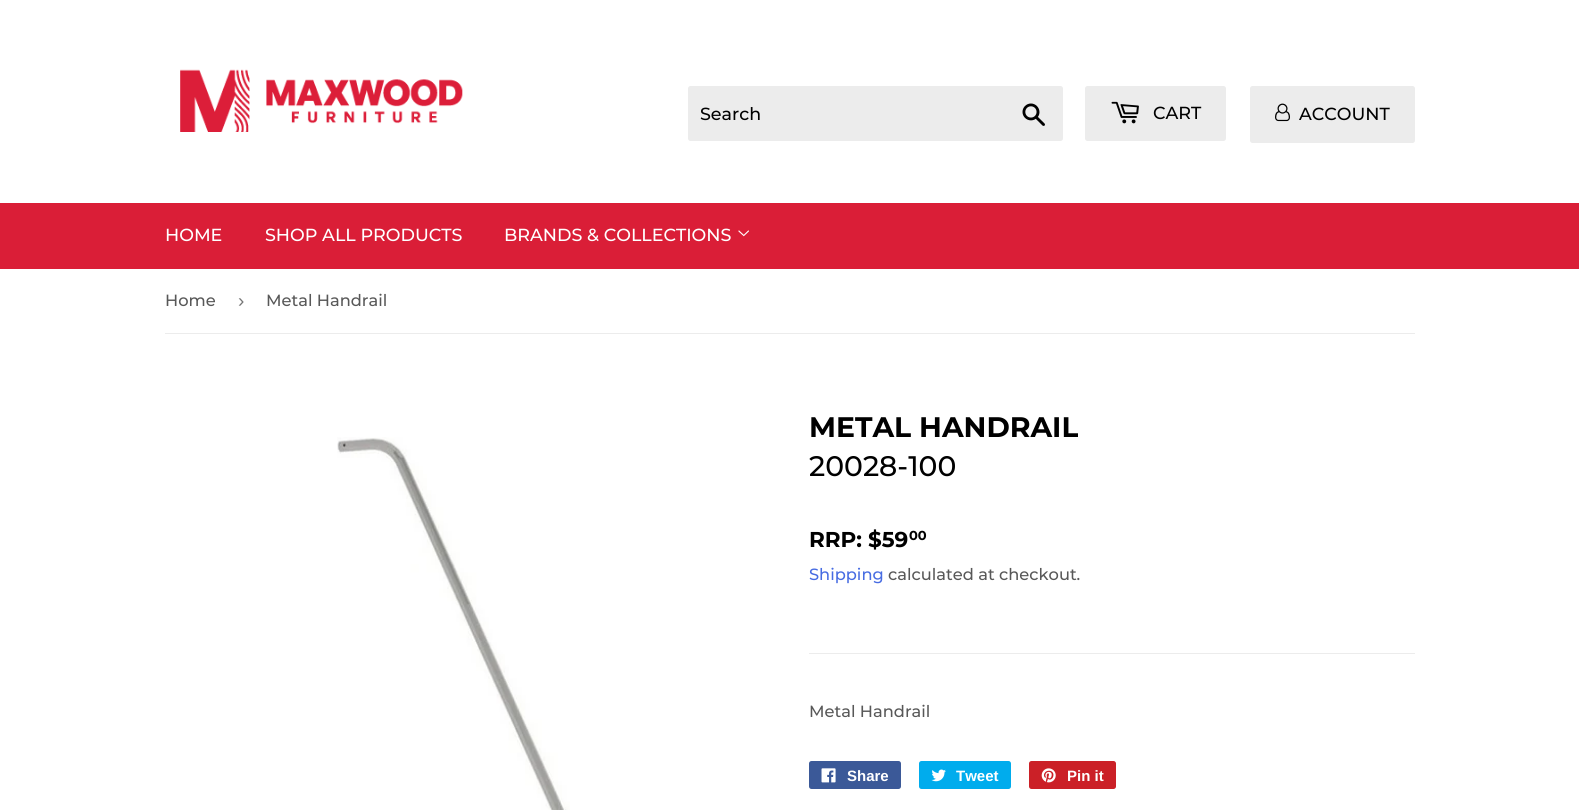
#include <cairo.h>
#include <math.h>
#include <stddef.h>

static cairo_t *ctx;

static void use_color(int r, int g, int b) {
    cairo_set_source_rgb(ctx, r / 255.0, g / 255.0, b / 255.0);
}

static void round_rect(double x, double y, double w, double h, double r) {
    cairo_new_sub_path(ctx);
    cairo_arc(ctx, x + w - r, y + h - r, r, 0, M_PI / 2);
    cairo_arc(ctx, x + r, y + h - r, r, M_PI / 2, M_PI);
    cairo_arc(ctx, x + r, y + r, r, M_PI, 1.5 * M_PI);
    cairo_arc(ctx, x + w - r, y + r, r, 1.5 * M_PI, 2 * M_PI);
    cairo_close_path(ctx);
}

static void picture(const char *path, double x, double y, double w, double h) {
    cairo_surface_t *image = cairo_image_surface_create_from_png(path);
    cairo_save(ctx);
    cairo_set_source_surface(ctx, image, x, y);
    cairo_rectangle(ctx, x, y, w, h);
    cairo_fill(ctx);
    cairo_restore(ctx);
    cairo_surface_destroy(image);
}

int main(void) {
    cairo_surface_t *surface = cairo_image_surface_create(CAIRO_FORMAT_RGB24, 1579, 810);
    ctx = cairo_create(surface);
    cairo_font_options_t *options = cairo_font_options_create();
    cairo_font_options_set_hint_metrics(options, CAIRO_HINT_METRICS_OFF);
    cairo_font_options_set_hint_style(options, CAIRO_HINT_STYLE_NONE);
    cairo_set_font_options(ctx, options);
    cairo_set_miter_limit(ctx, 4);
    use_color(255, 255, 255);
    cairo_paint(ctx);
    picture("img1.png", 180, 69, 283, 63);
    use_color(236, 236, 236);
    round_rect(688, 86, 375, 55, 2.5);
    cairo_fill(ctx);
    cairo_select_font_face(ctx, "Montserrat Medium", CAIRO_FONT_SLANT_NORMAL, CAIRO_FONT_WEIGHT_NORMAL);
    cairo_set_font_size(ctx, 17.5);
    use_color(0, 0, 0);
    cairo_move_to(ctx, 700, 120);
    cairo_show_text(ctx, "Search");
    picture("img2.png", 1022, 103, 23, 23);
    use_color(236, 236, 236);
    round_rect(1085, 86, 141, 55, 2.5);
    cairo_fill(ctx);
    picture("img3.png", 1111, 101, 28, 23);
    use_color(0, 0, 0);
    cairo_move_to(ctx, 1153, 119);
    cairo_show_text(ctx, "CART");
    use_color(236, 236, 236);
    round_rect(1250, 86, 165, 57, 2.5);
    cairo_fill(ctx);
    picture("img4.png", 1275, 103, 15, 19);
    use_color(0, 0, 0);
    cairo_move_to(ctx, 1299, 120);
    cairo_show_text(ctx, "ACCOUNT");
    use_color(218, 30, 55);
    cairo_rectangle(ctx, 0, 203, 1579, 66);
    cairo_fill(ctx);
    use_color(255, 255, 255);
    cairo_move_to(ctx, 165, 241);
    cairo_show_text(ctx, "HOME");
    cairo_move_to(ctx, 265, 241);
    cairo_show_text(ctx, "SHOP ALL PRODUCTS");
    cairo_move_to(ctx, 504, 241);
    cairo_show_text(ctx, "BRANDS & COLLECTIONS");
    picture("img5.png", 738, 230, 11, 7);
    use_color(236, 236, 236);
    cairo_rectangle(ctx, 165, 333, 1250, 1);
    cairo_fill(ctx);
    cairo_set_font_size(ctx, 16.25);
    use_color(88, 88, 88);
    cairo_move_to(ctx, 165, 306);
    cairo_show_text(ctx, "Home");
    cairo_select_font_face(ctx, "Liberation Sans", CAIRO_FONT_SLANT_NORMAL, CAIRO_FONT_WEIGHT_NORMAL);
    cairo_set_font_size(ctx, 19);
    use_color(118, 118, 118);
    cairo_move_to(ctx, 238, 307);
    cairo_show_text(ctx, "›");
    cairo_select_font_face(ctx, "Montserrat Medium", CAIRO_FONT_SLANT_NORMAL, CAIRO_FONT_WEIGHT_NORMAL);
    cairo_set_font_size(ctx, 16.25);
    use_color(88, 88, 88);
    cairo_move_to(ctx, 266, 306);
    cairo_show_text(ctx, "Metal Handrail");
    picture("img6.png", 337, 437, 233, 373);
    cairo_select_font_face(ctx, "Montserrat", CAIRO_FONT_SLANT_NORMAL, CAIRO_FONT_WEIGHT_BOLD);
    cairo_set_font_size(ctx, 28.25);
    use_color(0, 0, 0);
    cairo_move_to(ctx, 809, 437);
    cairo_show_text(ctx, "METAL HANDRAIL");
    cairo_select_font_face(ctx, "Montserrat Medium", CAIRO_FONT_SLANT_NORMAL, CAIRO_FONT_WEIGHT_NORMAL);
    cairo_move_to(ctx, 809, 476);
    cairo_show_text(ctx, "20028-100");
    cairo_select_font_face(ctx, "Montserrat", CAIRO_FONT_SLANT_NORMAL, CAIRO_FONT_WEIGHT_BOLD);
    cairo_set_font_size(ctx, 21.5);
    cairo_move_to(ctx, 809, 547);
    cairo_show_text(ctx, "RRP: $59");
    cairo_set_font_size(ctx, 13);
    cairo_move_to(ctx, 909, 540);
    cairo_show_text(ctx, "00");
    cairo_select_font_face(ctx, "Montserrat Medium", CAIRO_FONT_SLANT_NORMAL, CAIRO_FONT_WEIGHT_NORMAL);
    cairo_set_font_size(ctx, 16.25);
    use_color(71, 108, 226);
    cairo_move_to(ctx, 809, 580);
    cairo_show_text(ctx, "Shipping");
    use_color(88, 88, 88);
    cairo_move_to(ctx, 888, 580);
    cairo_show_text(ctx, "calculated at checkout.");
    use_color(236, 236, 236);
    cairo_rectangle(ctx, 809, 653, 606, 1);
    cairo_fill(ctx);
    use_color(88, 88, 88);
    cairo_move_to(ctx, 809, 717);
    cairo_show_text(ctx, "Metal Handrail");
    use_color(59, 89, 152);
    round_rect(809, 761, 92, 28, 2.5);
    cairo_fill(ctx);
    picture("img7.png", 821, 768, 15, 15);
    cairo_select_font_face(ctx, "Liberation Sans", CAIRO_FONT_SLANT_NORMAL, CAIRO_FONT_WEIGHT_BOLD);
    cairo_set_font_size(ctx, 15);
    use_color(255, 255, 255);
    cairo_move_to(ctx, 847, 781);
    cairo_show_text(ctx, "Share");
    use_color(0, 172, 237);
    round_rect(919, 761, 92, 28, 2.5);
    cairo_fill(ctx);
    picture("img8.png", 931, 769, 15, 13);
    use_color(255, 255, 255);
    cairo_move_to(ctx, 956, 781);
    cairo_show_text(ctx, "Tweet");
    use_color(203, 32, 39);
    round_rect(1029, 761, 87, 28, 2.5);
    cairo_fill(ctx);
    picture("img9.png", 1041, 768, 15, 15);
    use_color(255, 255, 255);
    cairo_move_to(ctx, 1067, 781);
    cairo_show_text(ctx, "Pin it");
    cairo_surface_write_to_png(surface, "result.png");
    cairo_font_options_destroy(options);
    cairo_destroy(ctx);
    cairo_surface_destroy(surface);
    return 0;
}
